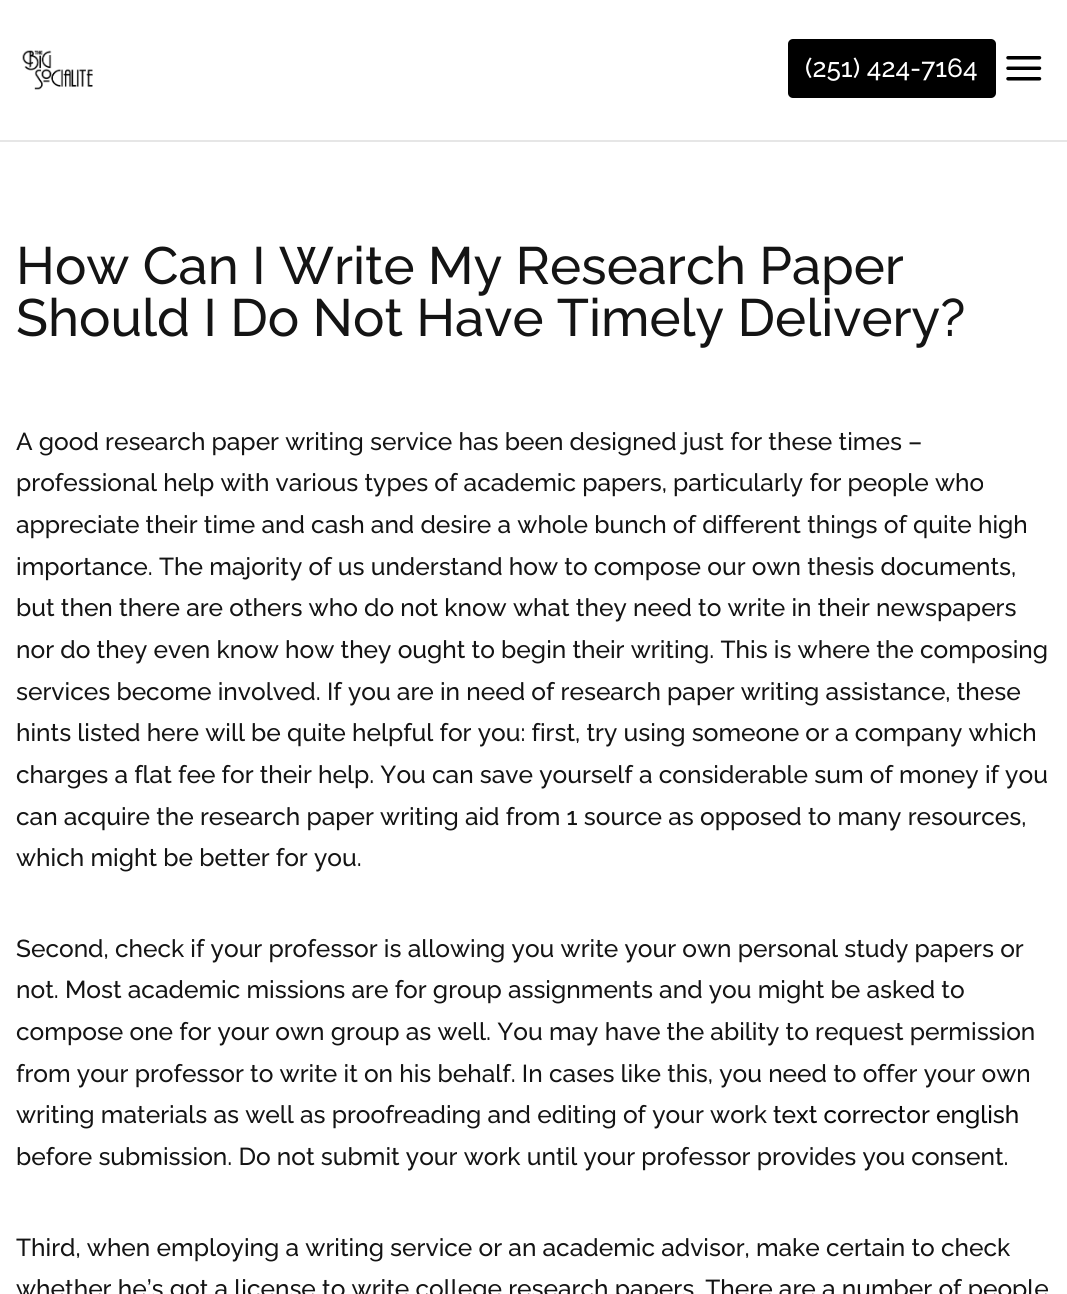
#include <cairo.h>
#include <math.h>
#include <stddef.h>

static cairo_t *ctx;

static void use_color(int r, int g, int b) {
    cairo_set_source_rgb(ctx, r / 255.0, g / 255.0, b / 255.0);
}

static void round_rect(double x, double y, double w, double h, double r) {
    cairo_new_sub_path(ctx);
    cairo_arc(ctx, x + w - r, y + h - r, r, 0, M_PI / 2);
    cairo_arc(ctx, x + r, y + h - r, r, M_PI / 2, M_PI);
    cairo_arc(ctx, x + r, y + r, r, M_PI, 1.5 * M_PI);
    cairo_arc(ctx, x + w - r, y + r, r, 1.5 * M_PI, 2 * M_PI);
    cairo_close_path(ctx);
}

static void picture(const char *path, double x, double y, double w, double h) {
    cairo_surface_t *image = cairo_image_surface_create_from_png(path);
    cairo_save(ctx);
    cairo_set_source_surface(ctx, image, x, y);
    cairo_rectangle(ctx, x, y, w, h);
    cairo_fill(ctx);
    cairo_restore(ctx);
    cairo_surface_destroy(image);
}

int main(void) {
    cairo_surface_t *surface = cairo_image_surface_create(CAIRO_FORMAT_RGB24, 1067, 1294);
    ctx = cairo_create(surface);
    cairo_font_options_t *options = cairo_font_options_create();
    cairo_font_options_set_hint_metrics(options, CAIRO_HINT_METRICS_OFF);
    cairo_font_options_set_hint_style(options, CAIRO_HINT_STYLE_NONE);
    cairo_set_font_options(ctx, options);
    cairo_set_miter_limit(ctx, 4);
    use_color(255, 255, 255);
    cairo_paint(ctx);
    use_color(230, 230, 230);
    cairo_new_path(ctx);
    cairo_move_to(ctx, 0, 140);
    cairo_line_to(ctx, 0, 142);
    cairo_line_to(ctx, 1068, 142);
    cairo_line_to(ctx, 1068, 2);
    cairo_line_to(ctx, 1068, 140);
    cairo_close_path(ctx);
    cairo_fill(ctx);
    picture("img1.png", 22, 50, 71, 40);
    use_color(0, 0, 0);
    round_rect(788, 39, 208, 59, 5);
    cairo_fill(ctx);
    cairo_select_font_face(ctx, "Raleway Thin", CAIRO_FONT_SLANT_NORMAL, CAIRO_FONT_WEIGHT_NORMAL);
    cairo_set_font_size(ctx, 26.25);
    use_color(255, 255, 255);
    cairo_move_to(ctx, 805, 77);
    cairo_show_text(ctx, "(251) 424-7164");
    picture("img2.png", 1006, 56, 36, 25);
    cairo_set_font_size(ctx, 52.5);
    use_color(20, 20, 20);
    cairo_move_to(ctx, 16, 284);
    cairo_show_text(ctx, "How Can I Write My Research Paper");
    cairo_move_to(ctx, 16, 336);
    cairo_show_text(ctx, "Should I Do Not Have Timely Delivery?");
    cairo_set_font_size(ctx, 24.5);
    cairo_move_to(ctx, 16, 450);
    cairo_show_text(ctx, "A good research paper writing service has been designed just for these times –");
    cairo_move_to(ctx, 16, 491);
    cairo_show_text(ctx, "professional help with various types of academic papers, particularly for people who");
    cairo_move_to(ctx, 16, 533);
    cairo_show_text(ctx, "appreciate their time and cash and desire a whole bunch of different things of quite high");
    cairo_move_to(ctx, 16, 575);
    cairo_show_text(ctx, "importance. The majority of us understand how to compose our own thesis documents,");
    cairo_move_to(ctx, 16, 616);
    cairo_show_text(ctx, "but then there are others who do not know what they need to write in their newspapers");
    cairo_move_to(ctx, 16, 658);
    cairo_show_text(ctx, "nor do they even know how they ought to begin their writing. This is where the composing");
    cairo_move_to(ctx, 16, 700);
    cairo_show_text(ctx, "services become involved. If you are in need of research paper writing assistance, these");
    cairo_move_to(ctx, 16, 741);
    cairo_show_text(ctx, "hints listed here will be quite helpful for you: first, try using someone or a company which");
    cairo_move_to(ctx, 16, 783);
    cairo_show_text(ctx, "charges a flat fee for their help. You can save yourself a considerable sum of money if you");
    cairo_move_to(ctx, 16, 825);
    cairo_show_text(ctx, "can acquire the research paper writing aid from 1 source as opposed to many resources,");
    cairo_move_to(ctx, 16, 866);
    cairo_show_text(ctx, "which might be better for you.");
    cairo_move_to(ctx, 16, 957);
    cairo_show_text(ctx, "Second, check if your professor is allowing you write your own personal study papers or");
    cairo_move_to(ctx, 16, 998);
    cairo_show_text(ctx, "not. Most academic missions are for group assignments and you might be asked to");
    cairo_move_to(ctx, 16, 1040);
    cairo_show_text(ctx, "compose one for your own group as well. You may have the ability to request permission");
    cairo_move_to(ctx, 16, 1082);
    cairo_show_text(ctx, "from your professor to write it on his behalf. In cases like this, you need to offer your own");
    cairo_move_to(ctx, 16, 1123);
    cairo_show_text(ctx, "writing materials as well as proofreading and editing of your work");
    use_color(10, 10, 10);
    cairo_move_to(ctx, 773, 1123);
    cairo_show_text(ctx, "text corrector english");
    use_color(20, 20, 20);
    cairo_move_to(ctx, 16, 1165);
    cairo_show_text(ctx, "before submission. Do not submit your work until your professor provides you consent.");
    cairo_move_to(ctx, 16, 1256);
    cairo_show_text(ctx, "Third, when employing a writing service or an academic advisor, make certain to check");
    cairo_move_to(ctx, 16, 1297);
    cairo_show_text(ctx, "whether he’s got a license to write college research papers. There are a number of people");
    cairo_surface_write_to_png(surface, "result.png");
    cairo_font_options_destroy(options);
    cairo_destroy(ctx);
    cairo_surface_destroy(surface);
    return 0;
}
